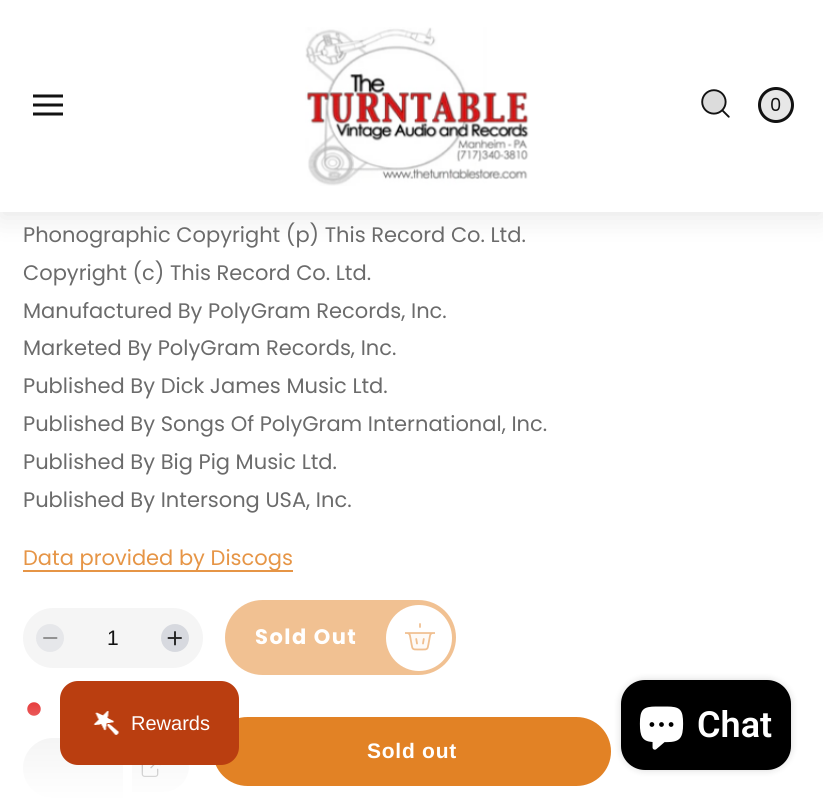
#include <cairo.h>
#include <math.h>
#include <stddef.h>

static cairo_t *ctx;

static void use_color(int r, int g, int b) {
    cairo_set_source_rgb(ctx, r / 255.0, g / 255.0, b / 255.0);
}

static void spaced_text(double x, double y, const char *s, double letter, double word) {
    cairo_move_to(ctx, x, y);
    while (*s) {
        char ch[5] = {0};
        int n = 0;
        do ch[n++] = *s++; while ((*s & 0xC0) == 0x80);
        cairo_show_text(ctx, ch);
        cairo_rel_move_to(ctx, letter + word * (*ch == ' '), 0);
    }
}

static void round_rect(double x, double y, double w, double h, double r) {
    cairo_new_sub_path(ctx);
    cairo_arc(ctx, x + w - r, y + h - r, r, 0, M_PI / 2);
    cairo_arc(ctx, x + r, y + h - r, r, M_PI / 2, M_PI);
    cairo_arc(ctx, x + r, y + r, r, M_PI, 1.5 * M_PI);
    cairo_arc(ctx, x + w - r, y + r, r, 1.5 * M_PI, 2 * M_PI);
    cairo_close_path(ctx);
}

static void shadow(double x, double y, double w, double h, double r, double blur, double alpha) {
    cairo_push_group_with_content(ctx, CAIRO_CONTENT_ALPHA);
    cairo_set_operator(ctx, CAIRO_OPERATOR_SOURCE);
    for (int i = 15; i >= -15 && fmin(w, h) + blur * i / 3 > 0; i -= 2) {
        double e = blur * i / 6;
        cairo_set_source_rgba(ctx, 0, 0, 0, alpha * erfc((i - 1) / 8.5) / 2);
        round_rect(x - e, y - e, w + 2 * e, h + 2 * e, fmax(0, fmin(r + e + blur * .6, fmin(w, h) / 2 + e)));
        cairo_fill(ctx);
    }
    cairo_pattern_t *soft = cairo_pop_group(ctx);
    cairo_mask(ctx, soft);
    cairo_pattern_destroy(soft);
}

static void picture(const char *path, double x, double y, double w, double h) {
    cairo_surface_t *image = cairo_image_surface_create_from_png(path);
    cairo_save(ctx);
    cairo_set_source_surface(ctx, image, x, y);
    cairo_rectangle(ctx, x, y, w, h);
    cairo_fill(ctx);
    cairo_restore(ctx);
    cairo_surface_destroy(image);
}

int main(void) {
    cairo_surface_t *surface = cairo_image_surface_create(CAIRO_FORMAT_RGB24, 823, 800);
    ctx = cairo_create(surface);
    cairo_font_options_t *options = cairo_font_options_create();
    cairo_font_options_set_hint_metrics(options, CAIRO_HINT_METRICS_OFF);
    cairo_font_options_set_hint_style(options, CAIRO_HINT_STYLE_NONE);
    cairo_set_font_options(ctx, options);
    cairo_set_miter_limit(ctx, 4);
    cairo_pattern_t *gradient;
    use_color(255, 255, 255);
    cairo_paint(ctx);
    use_color(18, 18, 18);
    shadow(0, 6, 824, 212, 0, 13, 0.1);
    use_color(255, 255, 255);
    cairo_rectangle(ctx, 0, 0, 823, 212);
    cairo_fill(ctx);
    picture("img1.png", 33, 94, 30, 22);
    picture("img2.png", 305, 27, 224, 159);
    picture("img3.png", 701, 89, 29, 29);
    use_color(231, 231, 231);
    cairo_arc(ctx, 776, 105, 16.5, 0, 2 * M_PI);
    cairo_fill_preserve(ctx);
    use_color(18, 18, 18);
    cairo_set_line_width(ctx, 3);
    cairo_stroke(ctx);
    cairo_select_font_face(ctx, "Poppins", CAIRO_FONT_SLANT_NORMAL, CAIRO_FONT_WEIGHT_NORMAL);
    cairo_set_font_size(ctx, 18);
    cairo_move_to(ctx, 770, 111);
    cairo_show_text(ctx, "0");
    cairo_set_font_size(ctx, 21);
    use_color(107, 107, 107);
    cairo_move_to(ctx, 23, 242);
    cairo_show_text(ctx, "Phonographic Copyright (p) This Record Co. Ltd.");
    cairo_move_to(ctx, 23, 280);
    cairo_show_text(ctx, "Copyright (c) This Record Co. Ltd.");
    cairo_move_to(ctx, 23, 318);
    cairo_show_text(ctx, "Manufactured By PolyGram Records, Inc.");
    cairo_move_to(ctx, 23, 355);
    cairo_show_text(ctx, "Marketed By PolyGram Records, Inc.");
    cairo_move_to(ctx, 23, 393);
    cairo_show_text(ctx, "Published By Dick James Music Ltd.");
    cairo_move_to(ctx, 23, 431);
    cairo_show_text(ctx, "Published By Songs Of PolyGram International, Inc.");
    cairo_move_to(ctx, 23, 469);
    cairo_show_text(ctx, "Published By Big Pig Music Ltd.");
    cairo_move_to(ctx, 23, 507);
    cairo_show_text(ctx, "Published By Intersong USA, Inc.");
    use_color(230, 149, 70);
    cairo_rectangle(ctx, 23, 570, 270, 2);
    cairo_fill(ctx);
    cairo_move_to(ctx, 23, 565);
    cairo_show_text(ctx, "Data provided by Discogs");
    use_color(245, 245, 245);
    round_rect(23, 608, 180, 60, 30);
    cairo_fill(ctx);
    use_color(230, 231, 234);
    cairo_arc(ctx, 50, 638, 14, 0, 2 * M_PI);
    cairo_fill(ctx);
    cairo_new_path(ctx);
    cairo_move_to(ctx, 56.5, 638);
    cairo_line_to(ctx, 44, 638);
    use_color(140, 140, 140);
    cairo_set_line_width(ctx, 1.9);
    cairo_set_line_cap(ctx, CAIRO_LINE_CAP_ROUND);
    cairo_stroke(ctx);
    cairo_select_font_face(ctx, "Liberation Sans", CAIRO_FONT_SLANT_NORMAL, CAIRO_FONT_WEIGHT_NORMAL);
    use_color(18, 18, 18);
    cairo_move_to(ctx, 107, 645);
    cairo_show_text(ctx, "1");
    use_color(215, 217, 223);
    cairo_new_path(ctx);
    cairo_arc(ctx, 175, 638, 14, 0, 2 * M_PI);
    cairo_fill(ctx);
    cairo_new_path(ctx);
    cairo_move_to(ctx, 175, 632);
    cairo_line_to(ctx, 175, 644.5);
    cairo_move_to(ctx, 181, 638);
    cairo_line_to(ctx, 168.5, 638);
    use_color(34, 34, 34);
    cairo_stroke(ctx);
    use_color(241, 193, 146);
    round_rect(225, 600, 231, 75, 37.5);
    cairo_fill(ctx);
    cairo_select_font_face(ctx, "Poppins", CAIRO_FONT_SLANT_NORMAL, CAIRO_FONT_WEIGHT_BOLD);
    use_color(255, 255, 255);
    spaced_text(255, 644, "Sold Out", 1.5, 0);
    cairo_new_path(ctx);
    cairo_arc(ctx, 419, 638, 33, 0, 2 * M_PI);
    cairo_fill(ctx);
    picture("img4.png", 405, 623, 30, 28);
    use_color(223, 3, 3);
    cairo_arc(ctx, 34, 709, 7.5, 0, 2 * M_PI);
    cairo_fill_preserve(ctx);
    use_color(255, 255, 255);
    cairo_set_line_width(ctx, 1.5);
    cairo_set_line_cap(ctx, CAIRO_LINE_CAP_BUTT);
    cairo_stroke(ctx);
    use_color(234, 234, 234);
    cairo_new_path(ctx);
    cairo_move_to(ctx, 53, 738);
    cairo_line_to(ctx, 116, 738);
    cairo_line_to(ctx, 116, 798);
    cairo_line_to(ctx, 53, 798);
    cairo_curve_to(ctx, 36.5, 798, 23, 784.5, 23, 768);
    cairo_curve_to(ctx, 23, 751.5, 36.5, 738, 53, 738);
    cairo_close_path(ctx);
    cairo_fill(ctx);
    cairo_rectangle(ctx, 116, 765, 7, 33);
    cairo_fill(ctx);
    cairo_new_path(ctx);
    cairo_move_to(ctx, 132, 740);
    cairo_line_to(ctx, 163, 740);
    cairo_curve_to(ctx, 177.5, 740, 189, 751.5, 189, 766);
    cairo_curve_to(ctx, 189, 780.5, 177.5, 792, 163, 792);
    cairo_line_to(ctx, 132, 792);
    cairo_close_path(ctx);
    cairo_fill(ctx);
    picture("img5.png", 141, 765, 20, 12);
    gradient = cairo_pattern_create_linear(412, 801, 412, 672);
    cairo_pattern_add_color_stop_rgba(gradient, 0, 1, 1, 1, 1);
    cairo_pattern_add_color_stop_rgba(gradient, 1, 1, 1, 1, 0);
    cairo_set_source(ctx, gradient);
    cairo_pattern_destroy(gradient);
    cairo_rectangle(ctx, 23, 702, 166, 96);
    cairo_fill(ctx);
    use_color(226, 130, 37);
    round_rect(213, 717, 398, 69, 34.5);
    cairo_fill(ctx);
    cairo_select_font_face(ctx, "Liberation Sans", CAIRO_FONT_SLANT_NORMAL, CAIRO_FONT_WEIGHT_BOLD);
    use_color(255, 255, 255);
    spaced_text(367, 758, "Sold out", 0.75, 0);
    use_color(0, 0, 0);
    shadow(621, 680, 170, 90, 24, 4, 0.15);
    use_color(0, 0, 0);
    round_rect(621, 680, 170, 90, 24);
    cairo_fill(ctx);
    picture("img6.png", 639, 706, 45, 44);
    cairo_select_font_face(ctx, "Roboto SemiBold", CAIRO_FONT_SLANT_NORMAL, CAIRO_FONT_WEIGHT_NORMAL);
    cairo_set_font_size(ctx, 36);
    use_color(255, 255, 255);
    cairo_move_to(ctx, 697, 737);
    cairo_show_text(ctx, "Chat");
    use_color(186, 62, 16);
    round_rect(60, 681, 179, 84, 18);
    cairo_fill(ctx);
    picture("img7.png", 93, 711, 27, 24);
    cairo_select_font_face(ctx, "Liberation Sans", CAIRO_FONT_SLANT_NORMAL, CAIRO_FONT_WEIGHT_NORMAL);
    cairo_set_font_size(ctx, 20);
    use_color(255, 255, 255);
    cairo_move_to(ctx, 131, 730);
    cairo_show_text(ctx, "Rewards");
    cairo_surface_write_to_png(surface, "result.png");
    cairo_font_options_destroy(options);
    cairo_destroy(ctx);
    cairo_surface_destroy(surface);
    return 0;
}
